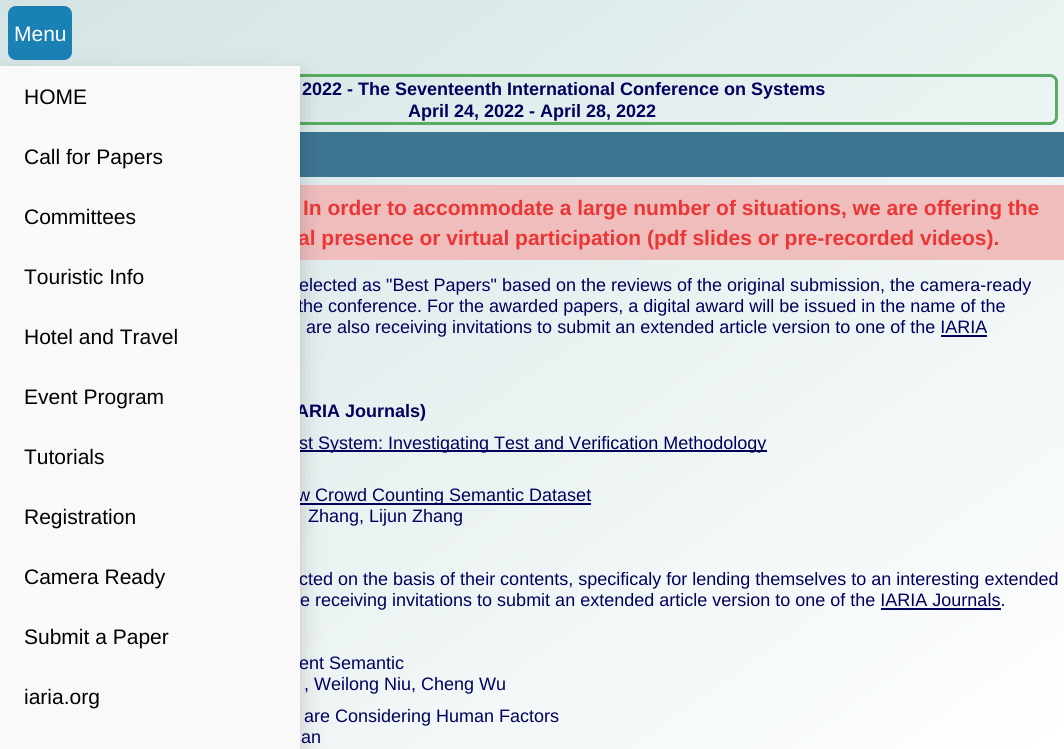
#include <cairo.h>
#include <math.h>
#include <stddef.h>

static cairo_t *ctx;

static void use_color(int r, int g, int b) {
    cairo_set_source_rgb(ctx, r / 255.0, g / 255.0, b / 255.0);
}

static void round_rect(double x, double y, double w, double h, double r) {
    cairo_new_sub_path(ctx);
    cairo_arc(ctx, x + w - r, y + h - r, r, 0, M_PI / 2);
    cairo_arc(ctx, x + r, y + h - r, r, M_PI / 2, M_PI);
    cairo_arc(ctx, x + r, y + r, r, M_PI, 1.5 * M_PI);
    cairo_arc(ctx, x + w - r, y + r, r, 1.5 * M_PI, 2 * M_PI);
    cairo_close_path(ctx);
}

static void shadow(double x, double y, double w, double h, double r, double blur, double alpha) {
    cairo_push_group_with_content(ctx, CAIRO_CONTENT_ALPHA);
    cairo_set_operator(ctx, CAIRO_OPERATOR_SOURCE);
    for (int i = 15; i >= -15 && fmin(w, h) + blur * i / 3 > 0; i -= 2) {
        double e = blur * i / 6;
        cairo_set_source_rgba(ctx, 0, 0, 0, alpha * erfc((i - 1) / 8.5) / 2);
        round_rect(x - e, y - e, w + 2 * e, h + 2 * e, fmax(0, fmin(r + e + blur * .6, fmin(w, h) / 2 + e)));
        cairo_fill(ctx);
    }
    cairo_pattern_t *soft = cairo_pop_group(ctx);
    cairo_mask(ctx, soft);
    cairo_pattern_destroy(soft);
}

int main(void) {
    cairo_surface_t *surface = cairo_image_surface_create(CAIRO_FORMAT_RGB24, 1064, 749);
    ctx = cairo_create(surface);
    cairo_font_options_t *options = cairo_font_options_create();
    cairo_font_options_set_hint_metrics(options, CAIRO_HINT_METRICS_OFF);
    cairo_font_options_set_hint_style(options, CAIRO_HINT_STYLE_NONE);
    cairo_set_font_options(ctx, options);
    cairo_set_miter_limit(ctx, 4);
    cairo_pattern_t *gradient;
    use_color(255, 255, 255);
    cairo_paint(ctx);
    gradient = cairo_pattern_create_linear(179, -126, 886, 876);
    cairo_pattern_add_color_stop_rgba(gradient, 0, 0.831, 0.894, 0.894, 1);
    cairo_pattern_add_color_stop_rgba(gradient, 1, 1, 1, 1, 1);
    cairo_set_source(ctx, gradient);
    cairo_pattern_destroy(gradient);
    cairo_rectangle(ctx, 0, 0, 1064, 749);
    cairo_fill(ctx);
    use_color(26, 129, 181);
    round_rect(8, 6, 64, 54, 8);
    cairo_fill(ctx);
    cairo_select_font_face(ctx, "Liberation Sans", CAIRO_FONT_SLANT_NORMAL, CAIRO_FONT_WEIGHT_NORMAL);
    cairo_set_font_size(ctx, 21);
    use_color(255, 255, 255);
    cairo_move_to(ctx, 14, 41);
    cairo_show_text(ctx, "Menu");
    round_rect(9.5, 75.5, 1047, 48, 6.5);
    use_color(86, 172, 98);
    cairo_set_line_width(ctx, 3);
    cairo_stroke(ctx);
    use_color(60, 117, 146);
    cairo_rectangle(ctx, 300, 132, 764, 45);
    cairo_fill(ctx);
    use_color(240, 189, 189);
    cairo_rectangle(ctx, 300, 185, 764, 75);
    cairo_fill(ctx);
    use_color(0, 0, 92);
    cairo_rectangle(ctx, 300, 450, 467, 2);
    cairo_fill(ctx);
    cairo_rectangle(ctx, 300, 503, 291, 2);
    cairo_fill(ctx);
    use_color(0, 0, 0);
    shadow(0, 78, 300, 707, 0, 12, 0.2);
    cairo_select_font_face(ctx, "Liberation Sans", CAIRO_FONT_SLANT_NORMAL, CAIRO_FONT_WEIGHT_BOLD);
    use_color(235, 54, 54);
    cairo_move_to(ctx, 298, 245);
    cairo_show_text(ctx, "al presence or virtual participation (pdf slides or pre-recorded videos).");
    cairo_select_font_face(ctx, "Liberation Sans", CAIRO_FONT_SLANT_NORMAL, CAIRO_FONT_WEIGHT_NORMAL);
    cairo_set_font_size(ctx, 18);
    use_color(0, 0, 92);
    cairo_move_to(ctx, 299, 291);
    cairo_show_text(ctx, "elected as \"Best Papers\" based on the reviews of the original submission, the camera-ready");
    cairo_move_to(ctx, 298, 312);
    cairo_show_text(ctx, "the conference. For the awarded papers, a digital award will be issued in the name of the");
    cairo_select_font_face(ctx, "Liberation Sans", CAIRO_FONT_SLANT_NORMAL, CAIRO_FONT_WEIGHT_BOLD);
    cairo_move_to(ctx, 296, 417);
    cairo_show_text(ctx, "ARIA Journals)");
    cairo_select_font_face(ctx, "Liberation Sans", CAIRO_FONT_SLANT_NORMAL, CAIRO_FONT_WEIGHT_NORMAL);
    cairo_move_to(ctx, 299, 449);
    cairo_show_text(ctx, "st System: Investigating Test and Verification Methodology");
    cairo_move_to(ctx, 297, 501);
    cairo_show_text(ctx, "w Crowd Counting Semantic Dataset");
    cairo_move_to(ctx, 299, 585);
    cairo_show_text(ctx, "cted on the basis of their contents, specificaly for lending themselves to an interesting extended");
    cairo_move_to(ctx, 299, 669);
    cairo_show_text(ctx, "ent Semantic");
    use_color(249, 249, 249);
    cairo_rectangle(ctx, 0, 66, 300, 683);
    cairo_fill(ctx);
    cairo_set_font_size(ctx, 21);
    use_color(0, 0, 0);
    cairo_move_to(ctx, 24, 104);
    cairo_show_text(ctx, "HOME");
    cairo_move_to(ctx, 24, 164);
    cairo_show_text(ctx, "Call for Papers");
    cairo_move_to(ctx, 24, 224);
    cairo_show_text(ctx, "Committees");
    cairo_move_to(ctx, 24, 284);
    cairo_show_text(ctx, "Touristic Info");
    cairo_move_to(ctx, 24, 344);
    cairo_show_text(ctx, "Hotel and Travel");
    cairo_move_to(ctx, 24, 404);
    cairo_show_text(ctx, "Event Program");
    cairo_move_to(ctx, 24, 464);
    cairo_show_text(ctx, "Tutorials");
    cairo_move_to(ctx, 24, 524);
    cairo_show_text(ctx, "Registration");
    cairo_move_to(ctx, 24, 584);
    cairo_show_text(ctx, "Camera Ready");
    cairo_move_to(ctx, 24, 644);
    cairo_show_text(ctx, "Submit a Paper");
    cairo_move_to(ctx, 24, 704);
    cairo_show_text(ctx, "iaria.org");
    cairo_select_font_face(ctx, "Liberation Sans", CAIRO_FONT_SLANT_NORMAL, CAIRO_FONT_WEIGHT_BOLD);
    cairo_set_font_size(ctx, 18);
    use_color(0, 0, 92);
    cairo_move_to(ctx, 302, 95);
    cairo_show_text(ctx, "2022 - The Seventeenth International Conference on Systems");
    cairo_move_to(ctx, 408, 117);
    cairo_show_text(ctx, "April 24, 2022 - April 28, 2022");
    cairo_set_font_size(ctx, 21);
    use_color(235, 54, 54);
    cairo_move_to(ctx, 303, 215);
    cairo_show_text(ctx, "In order to accommodate a large number of situations, we are offering the");
    cairo_select_font_face(ctx, "Liberation Sans", CAIRO_FONT_SLANT_NORMAL, CAIRO_FONT_WEIGHT_NORMAL);
    cairo_set_font_size(ctx, 18);
    use_color(0, 0, 92);
    cairo_move_to(ctx, 306, 333);
    cairo_show_text(ctx, "are also receiving invitations to submit an extended article version to one of the IARIA");
    cairo_rectangle(ctx, 941, 335, 46, 2);
    cairo_fill(ctx);
    cairo_move_to(ctx, 308, 522);
    cairo_show_text(ctx, "Zhang, Lijun Zhang");
    cairo_move_to(ctx, 300, 606);
    cairo_show_text(ctx, "e receiving invitations to submit an extended article version to one of the IARIA Journals.");
    cairo_rectangle(ctx, 881, 608, 120, 2);
    cairo_fill(ctx);
    cairo_move_to(ctx, 304, 690);
    cairo_show_text(ctx, ", Weilong Niu, Cheng Wu");
    cairo_move_to(ctx, 304, 722);
    cairo_show_text(ctx, "are Considering Human Factors");
    cairo_move_to(ctx, 301, 743);
    cairo_show_text(ctx, "an");
    cairo_surface_write_to_png(surface, "result.png");
    cairo_font_options_destroy(options);
    cairo_destroy(ctx);
    cairo_surface_destroy(surface);
    return 0;
}
